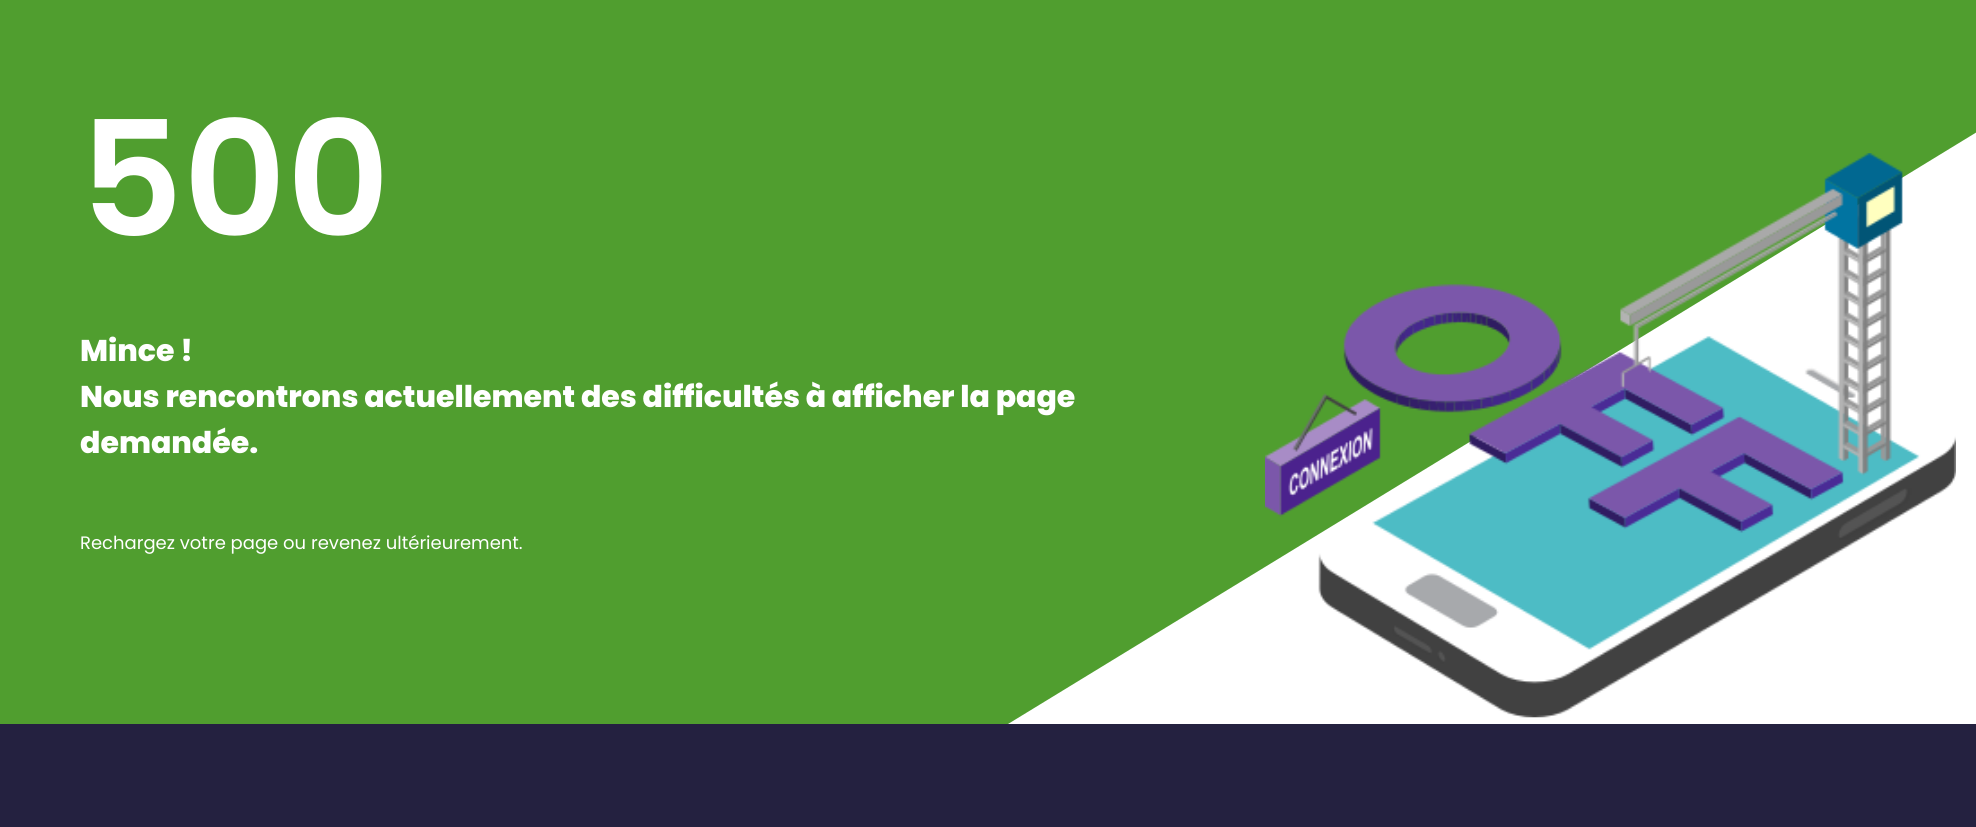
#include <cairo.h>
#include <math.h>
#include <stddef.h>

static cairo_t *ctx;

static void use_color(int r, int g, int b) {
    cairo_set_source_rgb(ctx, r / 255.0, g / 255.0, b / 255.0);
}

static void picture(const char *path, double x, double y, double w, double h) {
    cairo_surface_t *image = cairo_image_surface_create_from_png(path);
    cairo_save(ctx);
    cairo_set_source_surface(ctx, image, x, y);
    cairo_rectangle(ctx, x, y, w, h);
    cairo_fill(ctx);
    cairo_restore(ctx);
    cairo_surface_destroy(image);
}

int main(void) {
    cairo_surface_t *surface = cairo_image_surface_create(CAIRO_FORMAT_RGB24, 1976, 827);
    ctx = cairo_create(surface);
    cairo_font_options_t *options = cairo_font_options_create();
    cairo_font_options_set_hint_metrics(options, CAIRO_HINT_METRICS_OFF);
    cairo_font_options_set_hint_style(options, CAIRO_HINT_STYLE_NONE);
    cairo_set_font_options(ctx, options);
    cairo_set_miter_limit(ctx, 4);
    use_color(36, 33, 64);
    cairo_paint(ctx);
    use_color(80, 158, 47);
    cairo_rectangle(ctx, 0, 0, 1976, 724);
    cairo_fill(ctx);
    cairo_select_font_face(ctx, "Poppins SemiBold", CAIRO_FONT_SLANT_NORMAL, CAIRO_FONT_WEIGHT_NORMAL);
    cairo_set_font_size(ctx, 160);
    use_color(255, 255, 255);
    cairo_move_to(ctx, 80, 236);
    cairo_show_text(ctx, "500");
    cairo_select_font_face(ctx, "Poppins ExtraBold", CAIRO_FONT_SLANT_NORMAL, CAIRO_FONT_WEIGHT_NORMAL);
    cairo_set_font_size(ctx, 30);
    cairo_move_to(ctx, 80, 361);
    cairo_show_text(ctx, "Mince !");
    cairo_new_path(ctx);
    cairo_move_to(ctx, 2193, 0);
    cairo_line_to(ctx, 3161, 0);
    cairo_line_to(ctx, 1976, 724);
    cairo_line_to(ctx, 1008, 724);
    cairo_close_path(ctx);
    cairo_fill(ctx);
    cairo_move_to(ctx, 80, 407);
    cairo_show_text(ctx, "Nous rencontrons actuellement des difficultés à afficher la page");
    cairo_move_to(ctx, 80, 453);
    cairo_show_text(ctx, "demandée.");
    cairo_select_font_face(ctx, "Poppins", CAIRO_FONT_SLANT_NORMAL, CAIRO_FONT_WEIGHT_NORMAL);
    cairo_set_font_size(ctx, 18);
    cairo_move_to(ctx, 80, 549);
    cairo_show_text(ctx, "Rechargez votre page ou revenez ultérieurement.");
    picture("img1.png", 1265, 153, 691, 565);
    cairo_surface_write_to_png(surface, "result.png");
    cairo_font_options_destroy(options);
    cairo_destroy(ctx);
    cairo_surface_destroy(surface);
    return 0;
}
